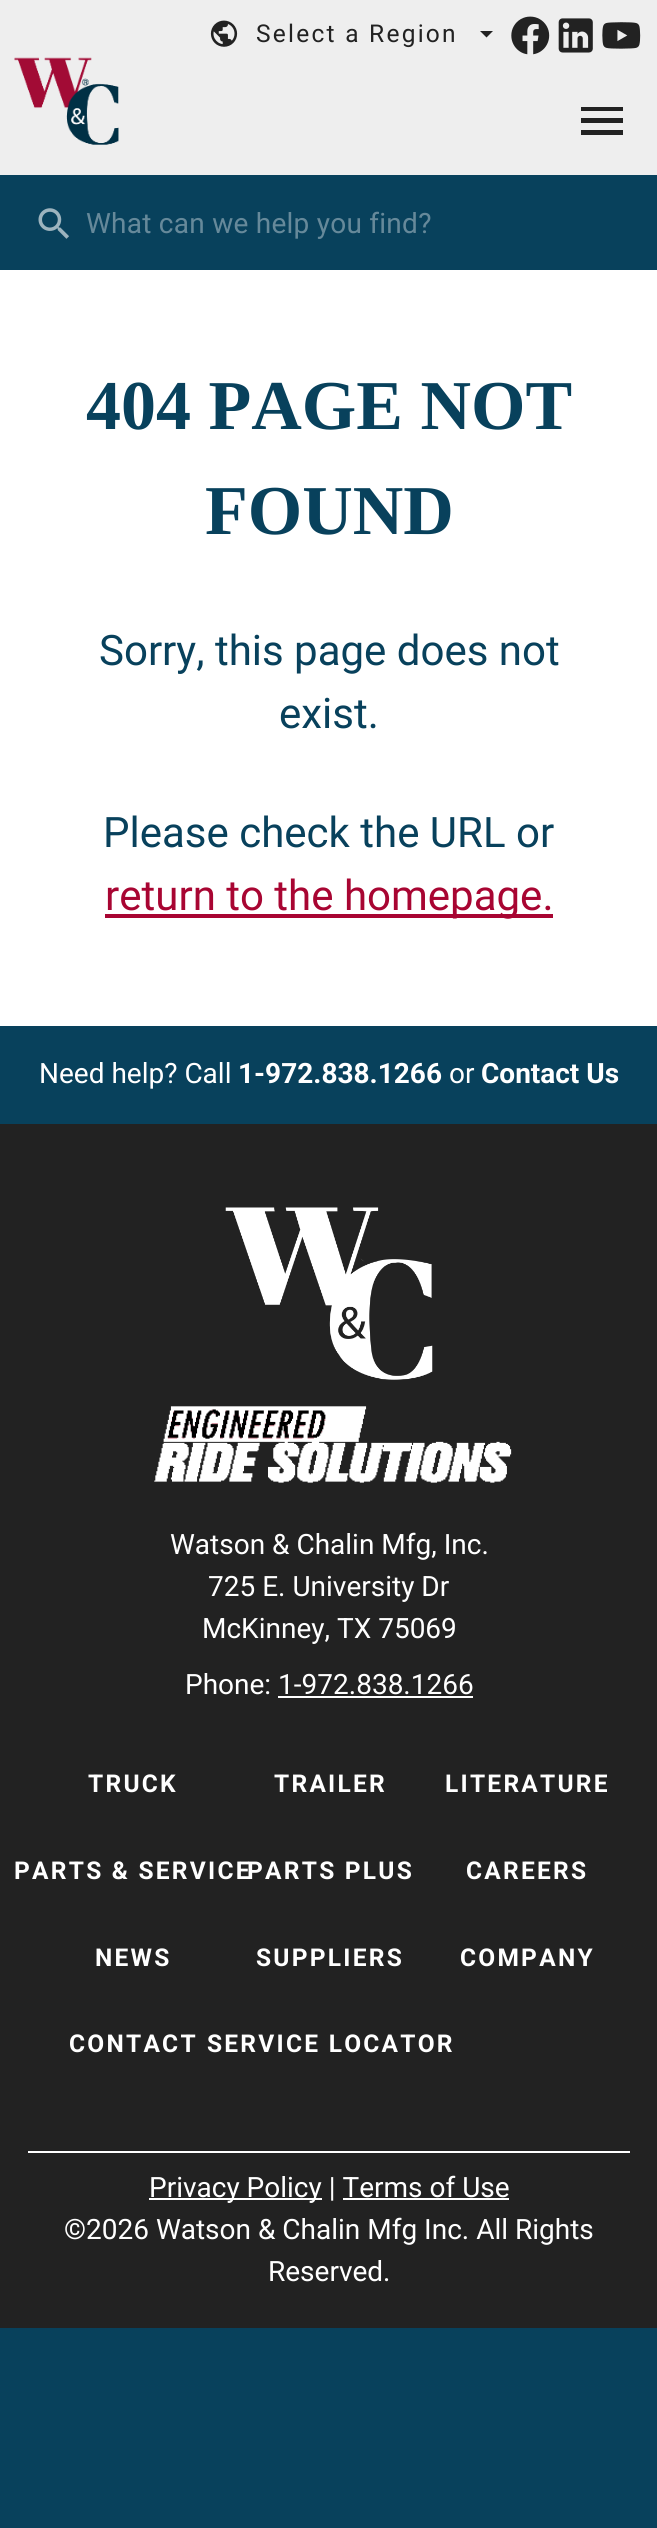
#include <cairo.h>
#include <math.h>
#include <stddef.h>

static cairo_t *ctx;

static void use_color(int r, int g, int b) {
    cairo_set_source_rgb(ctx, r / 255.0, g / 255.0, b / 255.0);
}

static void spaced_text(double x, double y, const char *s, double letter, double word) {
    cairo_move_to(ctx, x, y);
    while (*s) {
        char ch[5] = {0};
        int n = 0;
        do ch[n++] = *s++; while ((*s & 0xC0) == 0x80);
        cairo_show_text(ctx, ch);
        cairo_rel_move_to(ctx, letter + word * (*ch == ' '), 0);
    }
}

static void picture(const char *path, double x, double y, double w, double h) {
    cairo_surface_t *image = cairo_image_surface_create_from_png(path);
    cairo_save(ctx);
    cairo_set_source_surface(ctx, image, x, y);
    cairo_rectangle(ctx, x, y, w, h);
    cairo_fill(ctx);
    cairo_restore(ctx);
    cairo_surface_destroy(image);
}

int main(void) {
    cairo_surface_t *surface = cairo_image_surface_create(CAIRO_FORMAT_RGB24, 657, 2528);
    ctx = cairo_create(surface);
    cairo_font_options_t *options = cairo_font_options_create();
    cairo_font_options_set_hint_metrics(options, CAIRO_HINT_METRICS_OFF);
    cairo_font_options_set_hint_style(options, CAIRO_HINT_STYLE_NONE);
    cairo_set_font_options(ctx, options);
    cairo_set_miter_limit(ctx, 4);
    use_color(8, 65, 92);
    cairo_paint(ctx);
    use_color(238, 238, 238);
    cairo_rectangle(ctx, 0, 0, 657, 175);
    cairo_fill(ctx);
    picture("img1.png", 210, 20, 28, 27);
    cairo_select_font_face(ctx, "Roboto", CAIRO_FONT_SLANT_NORMAL, CAIRO_FONT_WEIGHT_NORMAL);
    cairo_set_font_size(ctx, 24.5);
    use_color(34, 34, 34);
    spaced_text(256, 42, "Select a Region", 2.25, 0);
    cairo_new_path(ctx);
    cairo_move_to(ctx, 480, 31);
    cairo_line_to(ctx, 486.5, 37.5);
    cairo_line_to(ctx, 493, 31);
    cairo_close_path(ctx);
    cairo_fill(ctx);
    picture("img2.png", 511, 16, 39, 39);
    picture("img3.png", 558, 18, 35, 35);
    picture("img4.png", 602, 22, 39, 27);
    picture("img5.png", 14, 57, 105, 88);
    cairo_new_path(ctx);
    cairo_move_to(ctx, 581, 107);
    cairo_line_to(ctx, 623, 107);
    cairo_line_to(ctx, 623, 111);
    cairo_line_to(ctx, 581, 111);
    cairo_close_path(ctx);
    cairo_move_to(ctx, 581, 118);
    cairo_line_to(ctx, 623, 118);
    cairo_line_to(ctx, 623, 123);
    cairo_line_to(ctx, 581, 123);
    cairo_close_path(ctx);
    cairo_move_to(ctx, 581, 130);
    cairo_line_to(ctx, 623, 130);
    cairo_line_to(ctx, 623, 135);
    cairo_line_to(ctx, 581, 135);
    cairo_close_path(ctx);
    cairo_fill(ctx);
    picture("img6.png", 38, 208, 31, 31);
    cairo_set_font_size(ctx, 28);
    use_color(102, 137, 154);
    spaced_text(86, 233, "What can we help you find?", 0.25, 0);
    use_color(255, 255, 255);
    cairo_rectangle(ctx, 0, 270, 657, 756);
    cairo_fill(ctx);
    cairo_select_font_face(ctx, "Liberation Serif", CAIRO_FONT_SLANT_NORMAL, CAIRO_FONT_WEIGHT_BOLD);
    cairo_set_font_size(ctx, 70);
    use_color(8, 65, 92);
    cairo_move_to(ctx, 86, 429);
    cairo_show_text(ctx, "404 PAGE NOT");
    cairo_move_to(ctx, 205, 534);
    cairo_show_text(ctx, "FOUND");
    cairo_select_font_face(ctx, "Roboto", CAIRO_FONT_SLANT_NORMAL, CAIRO_FONT_WEIGHT_NORMAL);
    cairo_set_font_size(ctx, 42);
    cairo_move_to(ctx, 99, 665);
    cairo_show_text(ctx, "Sorry, this page does not");
    cairo_move_to(ctx, 279, 728);
    cairo_show_text(ctx, "exist.");
    cairo_move_to(ctx, 103, 847);
    cairo_show_text(ctx, "Please check the URL or");
    use_color(168, 5, 50);
    cairo_rectangle(ctx, 105, 914, 448, 4);
    cairo_fill(ctx);
    cairo_move_to(ctx, 105, 910);
    cairo_show_text(ctx, "return to the homepage.");
    use_color(34, 34, 34);
    cairo_rectangle(ctx, 0, 1124, 657, 1204);
    cairo_fill(ctx);
    cairo_set_font_size(ctx, 28);
    use_color(255, 255, 255);
    cairo_move_to(ctx, 39, 1083);
    cairo_show_text(ctx, "Need help? Call");
    cairo_select_font_face(ctx, "Roboto", CAIRO_FONT_SLANT_NORMAL, CAIRO_FONT_WEIGHT_BOLD);
    cairo_move_to(ctx, 238, 1083);
    cairo_show_text(ctx, "1-972.838.1266");
    cairo_select_font_face(ctx, "Roboto", CAIRO_FONT_SLANT_NORMAL, CAIRO_FONT_WEIGHT_NORMAL);
    cairo_move_to(ctx, 449, 1083);
    cairo_show_text(ctx, "or");
    cairo_select_font_face(ctx, "Roboto", CAIRO_FONT_SLANT_NORMAL, CAIRO_FONT_WEIGHT_BOLD);
    cairo_move_to(ctx, 481, 1083);
    cairo_show_text(ctx, "Contact Us");
    picture("img7.png", 225, 1207, 208, 173);
    picture("img8.png", 154, 1406, 358, 77);
    cairo_select_font_face(ctx, "Roboto", CAIRO_FONT_SLANT_NORMAL, CAIRO_FONT_WEIGHT_NORMAL);
    cairo_move_to(ctx, 170, 1554);
    cairo_show_text(ctx, "Watson & Chalin Mfg, Inc.");
    cairo_move_to(ctx, 208, 1596);
    cairo_show_text(ctx, "725 E. University Dr");
    cairo_move_to(ctx, 202, 1638);
    cairo_show_text(ctx, "McKinney, TX 75069");
    cairo_move_to(ctx, 185, 1694);
    cairo_show_text(ctx, "Phone: 1-972.838.1266");
    cairo_rectangle(ctx, 278, 1696, 195, 2);
    cairo_fill(ctx);
    cairo_select_font_face(ctx, "Roboto", CAIRO_FONT_SLANT_NORMAL, CAIRO_FONT_WEIGHT_BOLD);
    cairo_set_font_size(ctx, 24.5);
    spaced_text(88, 1792, "TRUCK", 2.25, 0);
    spaced_text(274, 1792, "TRAILER", 2.25, 0);
    spaced_text(445, 1792, "LITERATURE", 2.25, 0);
    spaced_text(14, 1879, "PARTS & SERVICE", 2.25, 0);
    spaced_text(247, 1879, "PARTS PLUS", 2.25, 0);
    spaced_text(466, 1879, "CAREERS", 2.25, 0);
    spaced_text(95, 1966, "NEWS", 2.25, 0);
    spaced_text(256, 1966, "SUPPLIERS", 2.25, 0);
    spaced_text(460, 1966, "COMPANY", 2.25, 0);
    spaced_text(69, 2052, "CONTACT", 2.25, 0);
    spaced_text(207, 2052, "SERVICE LOCATOR", 2.25, 0);
    cairo_rectangle(ctx, 28, 2151, 602, 2);
    cairo_fill(ctx);
    cairo_rectangle(ctx, 149, 2198, 173, 2);
    cairo_fill(ctx);
    cairo_select_font_face(ctx, "Roboto", CAIRO_FONT_SLANT_NORMAL, CAIRO_FONT_WEIGHT_NORMAL);
    cairo_set_font_size(ctx, 28);
    cairo_move_to(ctx, 149, 2197);
    cairo_show_text(ctx, "Privacy Policy | Terms of Use");
    cairo_rectangle(ctx, 343, 2198, 166, 2);
    cairo_fill(ctx);
    cairo_move_to(ctx, 64, 2239);
    cairo_show_text(ctx, "©2026 Watson & Chalin Mfg Inc. All Rights");
    cairo_move_to(ctx, 268, 2281);
    cairo_show_text(ctx, "Reserved.");
    cairo_surface_write_to_png(surface, "result.png");
    cairo_font_options_destroy(options);
    cairo_destroy(ctx);
    cairo_surface_destroy(surface);
    return 0;
}
